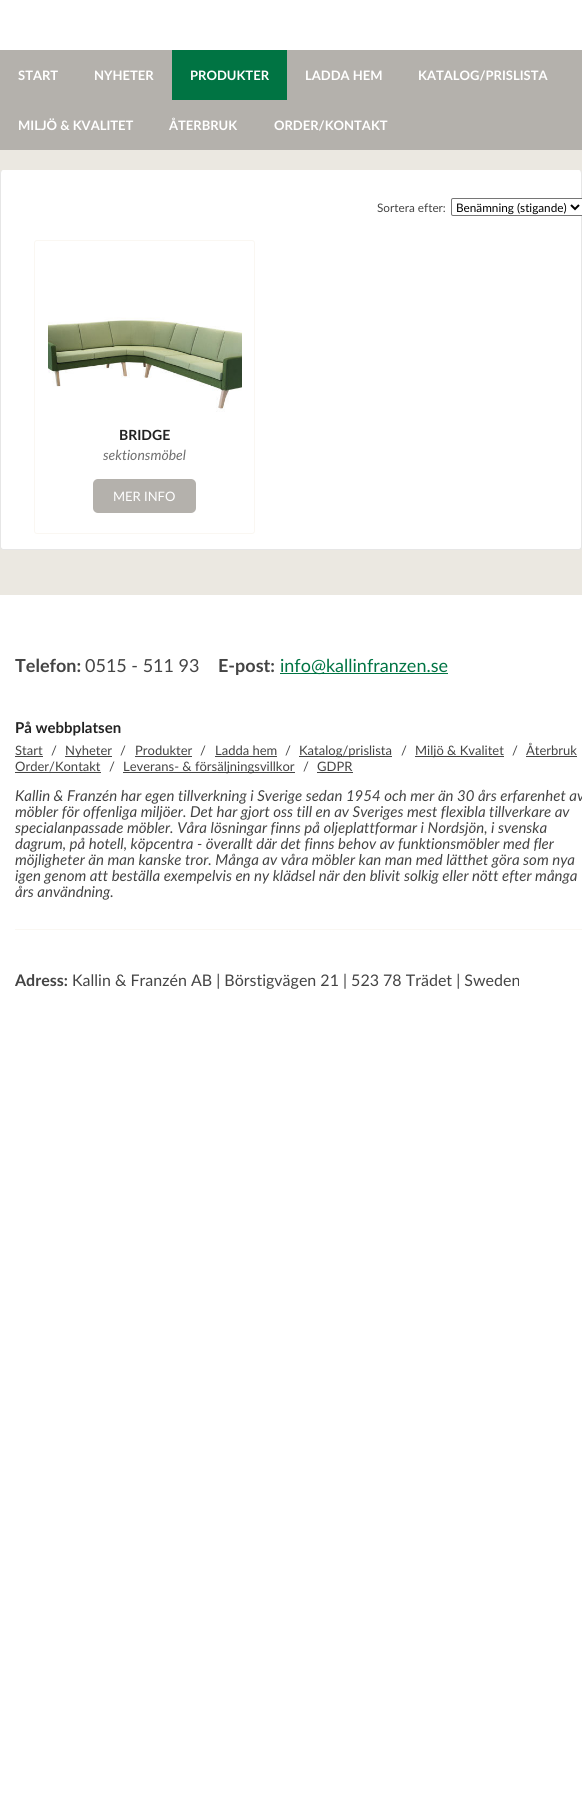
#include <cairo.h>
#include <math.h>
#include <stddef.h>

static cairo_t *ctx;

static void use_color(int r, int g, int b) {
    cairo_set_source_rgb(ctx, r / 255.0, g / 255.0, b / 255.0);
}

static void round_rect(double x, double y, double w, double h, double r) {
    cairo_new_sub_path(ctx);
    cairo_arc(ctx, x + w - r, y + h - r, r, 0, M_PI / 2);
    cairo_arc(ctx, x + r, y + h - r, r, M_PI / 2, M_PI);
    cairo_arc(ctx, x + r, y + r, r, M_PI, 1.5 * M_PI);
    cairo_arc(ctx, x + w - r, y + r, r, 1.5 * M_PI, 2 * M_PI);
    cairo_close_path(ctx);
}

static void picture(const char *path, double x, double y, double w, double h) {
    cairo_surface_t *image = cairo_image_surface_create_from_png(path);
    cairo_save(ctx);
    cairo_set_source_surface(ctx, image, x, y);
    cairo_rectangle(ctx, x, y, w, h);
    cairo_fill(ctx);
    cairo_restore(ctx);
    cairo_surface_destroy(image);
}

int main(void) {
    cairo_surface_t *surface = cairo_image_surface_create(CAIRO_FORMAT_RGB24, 582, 1797);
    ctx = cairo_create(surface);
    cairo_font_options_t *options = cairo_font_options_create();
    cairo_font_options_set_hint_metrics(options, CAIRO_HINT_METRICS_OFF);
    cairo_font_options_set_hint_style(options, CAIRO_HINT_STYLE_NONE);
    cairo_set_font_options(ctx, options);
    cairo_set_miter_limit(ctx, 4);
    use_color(255, 255, 255);
    cairo_paint(ctx);
    use_color(180, 177, 172);
    cairo_rectangle(ctx, 0, 50, 582, 100);
    cairo_fill(ctx);
    cairo_select_font_face(ctx, "Lato", CAIRO_FONT_SLANT_NORMAL, CAIRO_FONT_WEIGHT_BOLD);
    cairo_set_font_size(ctx, 13);
    use_color(255, 255, 255);
    cairo_move_to(ctx, 18, 80);
    cairo_show_text(ctx, "START");
    cairo_move_to(ctx, 94, 80);
    cairo_show_text(ctx, "NYHETER");
    use_color(0, 116, 67);
    cairo_rectangle(ctx, 172, 50, 115, 50);
    cairo_fill(ctx);
    use_color(255, 255, 255);
    cairo_move_to(ctx, 190, 80);
    cairo_show_text(ctx, "PRODUKTER");
    cairo_move_to(ctx, 305, 80);
    cairo_show_text(ctx, "LADDA HEM");
    cairo_move_to(ctx, 418, 80);
    cairo_show_text(ctx, "KATALOG/PRISLISTA");
    cairo_move_to(ctx, 18, 130);
    cairo_show_text(ctx, "MILJÖ & KVALITET");
    cairo_move_to(ctx, 169, 130);
    cairo_show_text(ctx, "ÅTERBRUK");
    cairo_move_to(ctx, 274, 130);
    cairo_show_text(ctx, "ORDER/KONTAKT");
    use_color(235, 232, 225);
    cairo_rectangle(ctx, 0, 150, 582, 445);
    cairo_fill(ctx);
    use_color(255, 255, 255);
    cairo_new_path(ctx);
    cairo_move_to(ctx, 3, 170);
    cairo_line_to(ctx, 579, 170);
    cairo_curve_to(ctx, 580, 170, 581, 171, 581, 173);
    cairo_line_to(ctx, 581, 547);
    cairo_curve_to(ctx, 581, 548, 580, 549, 579, 549);
    cairo_line_to(ctx, 3, 549);
    cairo_curve_to(ctx, 2, 549, 1, 548, 1, 547);
    cairo_line_to(ctx, 1, 173);
    cairo_curve_to(ctx, 1, 171, 2, 170, 3, 170);
    cairo_close_path(ctx);
    cairo_fill(ctx);
    use_color(230, 230, 230);
    cairo_set_fill_rule(ctx, CAIRO_FILL_RULE_EVEN_ODD);
    cairo_new_path(ctx);
    cairo_move_to(ctx, 3, 170);
    cairo_line_to(ctx, 579, 170);
    cairo_curve_to(ctx, 581, 170, 582, 171, 582, 173);
    cairo_line_to(ctx, 582, 547);
    cairo_curve_to(ctx, 582, 549, 581, 550, 579, 550);
    cairo_line_to(ctx, 3, 550);
    cairo_curve_to(ctx, 1, 550, 0, 549, 0, 547);
    cairo_line_to(ctx, 0, 173);
    cairo_curve_to(ctx, 0, 171, 1, 170, 3, 170);
    cairo_close_path(ctx);
    cairo_move_to(ctx, 3, 170);
    cairo_line_to(ctx, 579, 170);
    cairo_curve_to(ctx, 580, 170, 581, 171, 581, 173);
    cairo_line_to(ctx, 581, 547);
    cairo_curve_to(ctx, 581, 548, 580, 549, 579, 549);
    cairo_line_to(ctx, 3, 549);
    cairo_curve_to(ctx, 2, 549, 1, 548, 1, 547);
    cairo_line_to(ctx, 1, 173);
    cairo_curve_to(ctx, 1, 171, 2, 170, 3, 170);
    cairo_close_path(ctx);
    cairo_fill(ctx);
    cairo_select_font_face(ctx, "Lato", CAIRO_FONT_SLANT_NORMAL, CAIRO_FONT_WEIGHT_NORMAL);
    cairo_set_font_size(ctx, 11.75);
    use_color(68, 68, 68);
    cairo_move_to(ctx, 377, 212);
    cairo_show_text(ctx, "Sortera efter:");
    use_color(255, 255, 255);
    round_rect(451.5, 198.5, 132, 17, 1.5);
    cairo_fill_preserve(ctx);
    use_color(118, 118, 118);
    cairo_set_line_width(ctx, 1);
    cairo_stroke(ctx);
    cairo_new_path(ctx);
    cairo_move_to(ctx, 571, 205);
    cairo_line_to(ctx, 575, 209);
    cairo_line_to(ctx, 579, 205);
    use_color(0, 0, 0);
    cairo_set_line_width(ctx, 2);
    cairo_stroke(ctx);
    cairo_move_to(ctx, 456, 212);
    cairo_show_text(ctx, "Benämning (stigande)");
    round_rect(34.5, 240.5, 220, 293, 2.5);
    use_color(250, 247, 242);
    cairo_set_line_width(ctx, 1);
    cairo_stroke(ctx);
    picture("img1.png", 48, 317, 194, 95);
    cairo_select_font_face(ctx, "Lato", CAIRO_FONT_SLANT_NORMAL, CAIRO_FONT_WEIGHT_BOLD);
    cairo_set_font_size(ctx, 14);
    use_color(34, 34, 34);
    cairo_move_to(ctx, 119, 440);
    cairo_show_text(ctx, "BRIDGE");
    cairo_select_font_face(ctx, "Lato", CAIRO_FONT_SLANT_ITALIC, CAIRO_FONT_WEIGHT_NORMAL);
    use_color(110, 110, 110);
    cairo_move_to(ctx, 103, 460);
    cairo_show_text(ctx, "sektionsmöbel");
    use_color(180, 177, 172);
    round_rect(93, 479, 103, 34, 5);
    cairo_fill(ctx);
    cairo_select_font_face(ctx, "Lato", CAIRO_FONT_SLANT_NORMAL, CAIRO_FONT_WEIGHT_NORMAL);
    cairo_set_font_size(ctx, 13);
    use_color(255, 255, 255);
    cairo_move_to(ctx, 113, 501);
    cairo_show_text(ctx, "MER INFO");
    cairo_select_font_face(ctx, "Lato", CAIRO_FONT_SLANT_NORMAL, CAIRO_FONT_WEIGHT_BOLD);
    cairo_set_font_size(ctx, 18);
    use_color(68, 68, 68);
    cairo_move_to(ctx, 15, 672);
    cairo_show_text(ctx, "Telefon:");
    cairo_select_font_face(ctx, "Lato", CAIRO_FONT_SLANT_NORMAL, CAIRO_FONT_WEIGHT_NORMAL);
    cairo_move_to(ctx, 85, 672);
    cairo_show_text(ctx, "0515 - 511 93");
    cairo_select_font_face(ctx, "Lato", CAIRO_FONT_SLANT_NORMAL, CAIRO_FONT_WEIGHT_BOLD);
    cairo_move_to(ctx, 218, 672);
    cairo_show_text(ctx, "E-post:");
    use_color(0, 116, 67);
    cairo_rectangle(ctx, 280, 673, 168, 1);
    cairo_fill(ctx);
    cairo_select_font_face(ctx, "Lato", CAIRO_FONT_SLANT_NORMAL, CAIRO_FONT_WEIGHT_NORMAL);
    cairo_move_to(ctx, 280, 672);
    cairo_show_text(ctx, "info@kallinfranzen.se");
    cairo_select_font_face(ctx, "Lato", CAIRO_FONT_SLANT_NORMAL, CAIRO_FONT_WEIGHT_BOLD);
    cairo_set_font_size(ctx, 15);
    use_color(34, 34, 34);
    cairo_move_to(ctx, 15, 733);
    cairo_show_text(ctx, "På webbplatsen");
    cairo_select_font_face(ctx, "Lato", CAIRO_FONT_SLANT_NORMAL, CAIRO_FONT_WEIGHT_NORMAL);
    cairo_set_font_size(ctx, 13);
    use_color(68, 68, 68);
    cairo_move_to(ctx, 15, 755);
    cairo_show_text(ctx, "Start");
    cairo_rectangle(ctx, 15, 756, 28, 1);
    cairo_fill(ctx);
    cairo_move_to(ctx, 51, 755);
    cairo_show_text(ctx, "/");
    cairo_rectangle(ctx, 65, 756, 47, 1);
    cairo_fill(ctx);
    cairo_move_to(ctx, 65, 755);
    cairo_show_text(ctx, "Nyheter");
    cairo_move_to(ctx, 120, 755);
    cairo_show_text(ctx, "/");
    cairo_move_to(ctx, 135, 755);
    cairo_show_text(ctx, "Produkter");
    cairo_rectangle(ctx, 135, 756, 57, 1);
    cairo_fill(ctx);
    cairo_move_to(ctx, 200, 755);
    cairo_show_text(ctx, "/");
    cairo_move_to(ctx, 215, 755);
    cairo_show_text(ctx, "Ladda hem");
    cairo_rectangle(ctx, 215, 756, 62, 1);
    cairo_fill(ctx);
    cairo_move_to(ctx, 285, 755);
    cairo_show_text(ctx, "/");
    cairo_rectangle(ctx, 299, 756, 93, 1);
    cairo_fill(ctx);
    cairo_move_to(ctx, 299, 755);
    cairo_show_text(ctx, "Katalog/prislista");
    cairo_move_to(ctx, 401, 755);
    cairo_show_text(ctx, "/");
    cairo_rectangle(ctx, 415, 756, 89, 1);
    cairo_fill(ctx);
    cairo_move_to(ctx, 415, 755);
    cairo_show_text(ctx, "Miljö & Kvalitet");
    cairo_move_to(ctx, 512, 755);
    cairo_show_text(ctx, "/");
    cairo_move_to(ctx, 526, 755);
    cairo_show_text(ctx, "Återbruk");
    cairo_rectangle(ctx, 526, 756, 51, 1);
    cairo_fill(ctx);
    cairo_move_to(ctx, 15, 771);
    cairo_show_text(ctx, "Order/Kontakt");
    cairo_rectangle(ctx, 15, 772, 86, 1);
    cairo_fill(ctx);
    cairo_move_to(ctx, 109, 771);
    cairo_show_text(ctx, "/");
    cairo_rectangle(ctx, 123, 772, 172, 1);
    cairo_fill(ctx);
    cairo_move_to(ctx, 123, 771);
    cairo_show_text(ctx, "Leverans- & försäljningsvillkor");
    cairo_move_to(ctx, 303, 771);
    cairo_show_text(ctx, "/");
    cairo_move_to(ctx, 317, 771);
    cairo_show_text(ctx, "GDPR");
    cairo_rectangle(ctx, 317, 772, 36, 1);
    cairo_fill(ctx);
    cairo_select_font_face(ctx, "Lato", CAIRO_FONT_SLANT_ITALIC, CAIRO_FONT_WEIGHT_NORMAL);
    cairo_set_font_size(ctx, 15);
    cairo_move_to(ctx, 15, 801);
    cairo_show_text(ctx, "Kallin & Franzén har egen tillverkning i Sverige sedan 1954 och mer än 30 års erfarenhet av");
    cairo_move_to(ctx, 15, 817);
    cairo_show_text(ctx, "möbler för offenliga miljöer. Det har gjort oss till en av Sveriges mest flexibla tillverkare av");
    cairo_move_to(ctx, 15, 833);
    cairo_show_text(ctx, "specialanpassade möbler. Våra lösningar finns på oljeplattformar i Nordsjön, i svenska");
    cairo_move_to(ctx, 15, 849);
    cairo_show_text(ctx, "dagrum, på hotell, köpcentra - överallt där det finns behov av funktionsmöbler med fler");
    cairo_move_to(ctx, 15, 865);
    cairo_show_text(ctx, "möjligheter än man kanske tror. Många av våra möbler kan man med lätthet göra som nya");
    cairo_move_to(ctx, 15, 881);
    cairo_show_text(ctx, "igen genom att beställa exempelvis en ny klädsel när den blivit solkig eller nött efter många");
    cairo_move_to(ctx, 15, 897);
    cairo_show_text(ctx, "års användning.");
    use_color(250, 247, 242);
    cairo_rectangle(ctx, 15, 929, 567, 1);
    cairo_fill(ctx);
    cairo_select_font_face(ctx, "Lato", CAIRO_FONT_SLANT_NORMAL, CAIRO_FONT_WEIGHT_BOLD);
    cairo_set_font_size(ctx, 16);
    use_color(68, 68, 68);
    cairo_move_to(ctx, 15, 986);
    cairo_show_text(ctx, "Adress:");
    cairo_select_font_face(ctx, "Lato", CAIRO_FONT_SLANT_NORMAL, CAIRO_FONT_WEIGHT_NORMAL);
    cairo_move_to(ctx, 72, 986);
    cairo_show_text(ctx, "Kallin & Franzén AB | Börstigvägen 21 | 523 78 Trädet | Sweden");
    cairo_surface_write_to_png(surface, "result.png");
    cairo_font_options_destroy(options);
    cairo_destroy(ctx);
    cairo_surface_destroy(surface);
    return 0;
}
